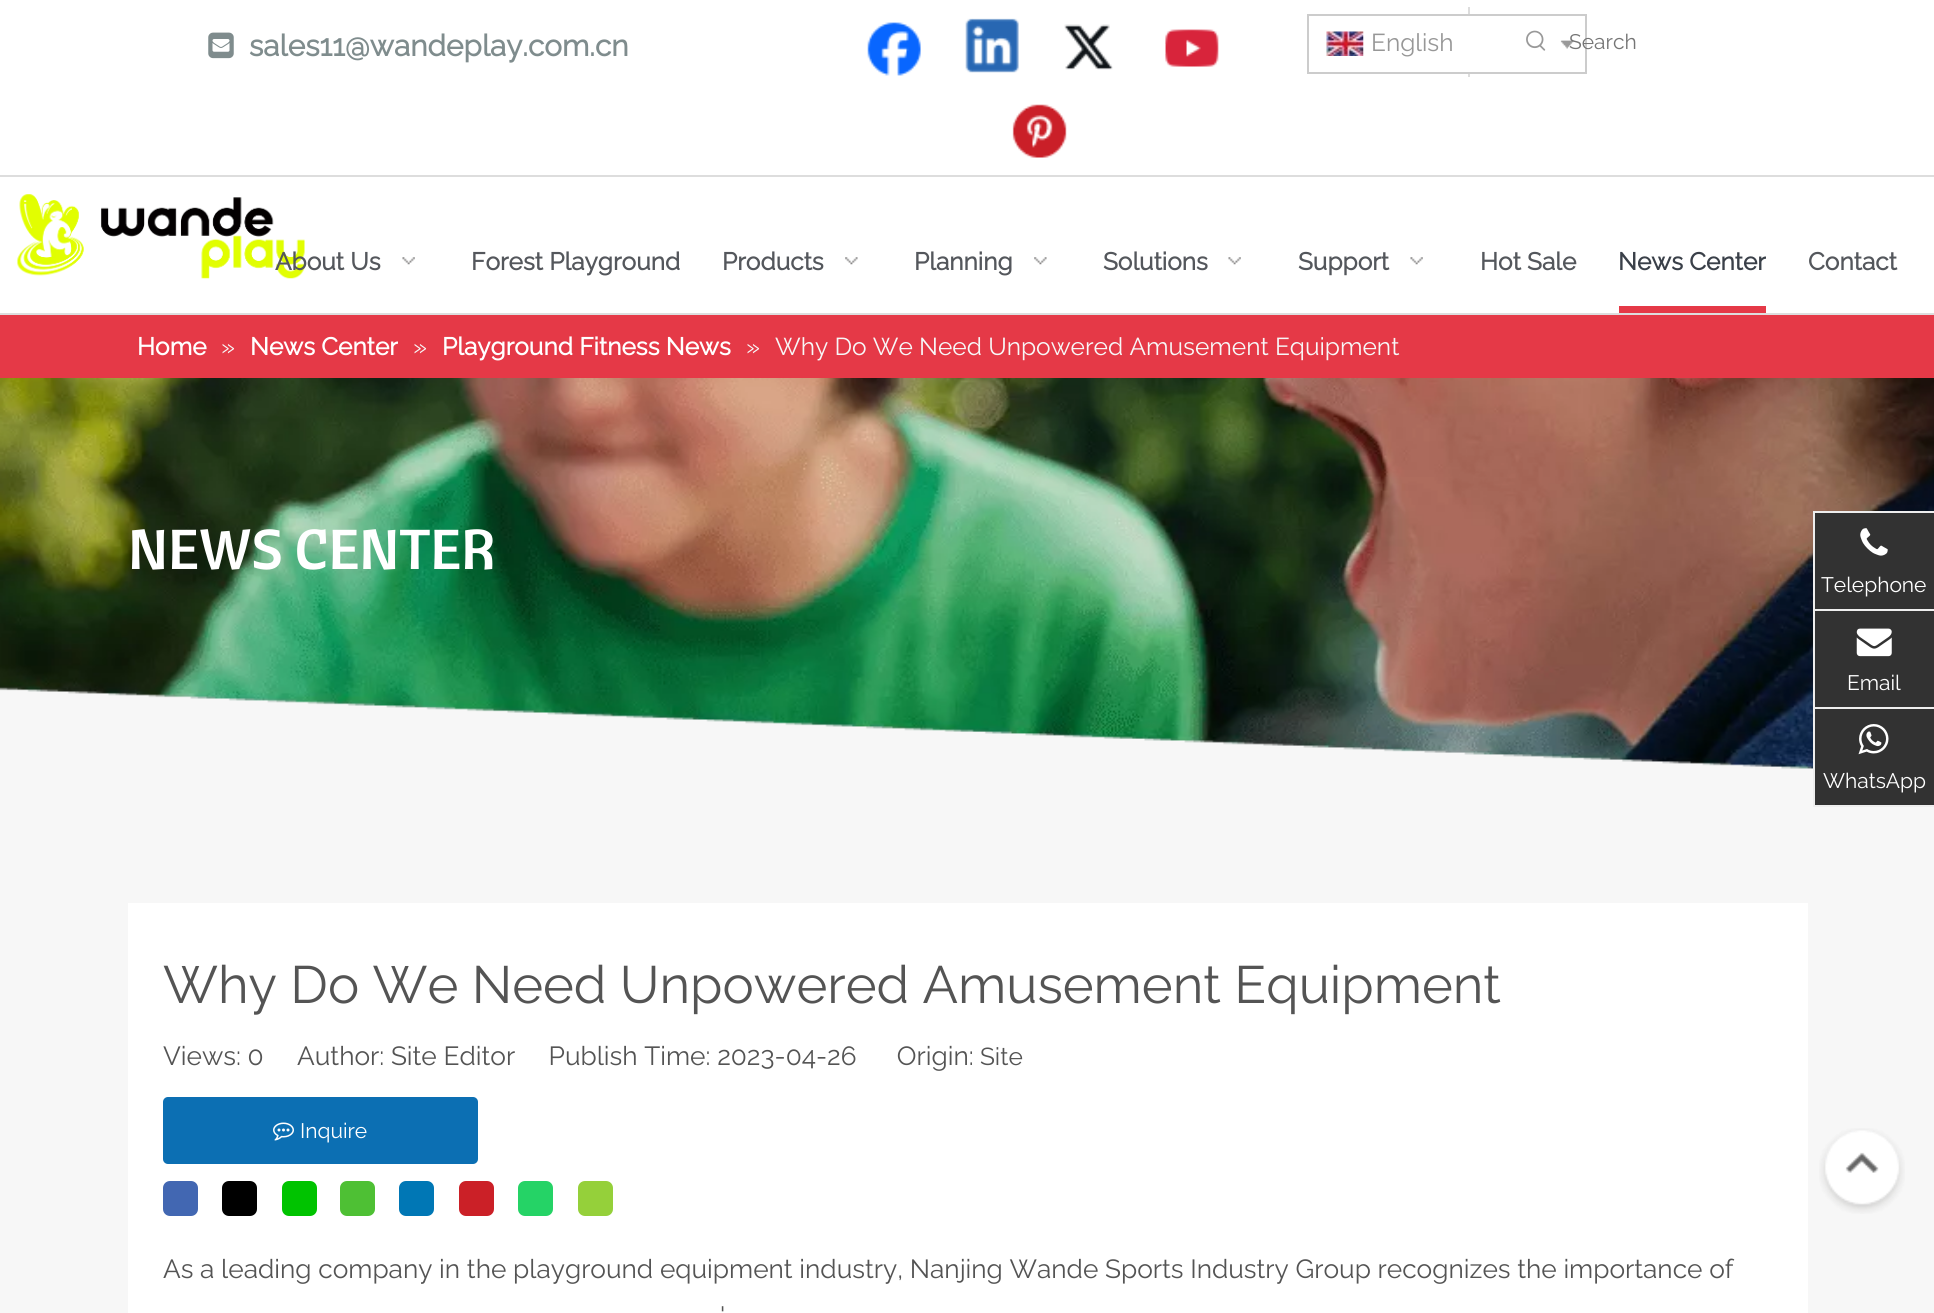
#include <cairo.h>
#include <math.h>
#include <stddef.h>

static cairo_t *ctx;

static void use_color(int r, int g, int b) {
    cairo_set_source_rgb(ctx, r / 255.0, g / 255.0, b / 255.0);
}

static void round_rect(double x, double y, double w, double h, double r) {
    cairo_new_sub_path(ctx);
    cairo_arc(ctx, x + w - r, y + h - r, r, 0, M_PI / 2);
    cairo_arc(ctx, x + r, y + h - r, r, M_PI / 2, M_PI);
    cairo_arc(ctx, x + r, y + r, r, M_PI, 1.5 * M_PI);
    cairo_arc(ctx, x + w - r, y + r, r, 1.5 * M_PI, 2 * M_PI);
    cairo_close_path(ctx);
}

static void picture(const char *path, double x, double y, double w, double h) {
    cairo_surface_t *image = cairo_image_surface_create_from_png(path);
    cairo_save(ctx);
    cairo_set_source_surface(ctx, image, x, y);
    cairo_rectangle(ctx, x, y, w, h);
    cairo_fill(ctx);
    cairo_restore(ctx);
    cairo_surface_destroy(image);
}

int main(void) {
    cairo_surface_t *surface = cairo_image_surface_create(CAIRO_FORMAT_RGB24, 1934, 1313);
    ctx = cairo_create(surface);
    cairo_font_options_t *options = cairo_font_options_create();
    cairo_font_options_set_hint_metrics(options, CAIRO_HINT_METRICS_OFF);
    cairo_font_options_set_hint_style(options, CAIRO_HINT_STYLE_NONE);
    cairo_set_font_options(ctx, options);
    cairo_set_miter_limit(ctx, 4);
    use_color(255, 255, 255);
    cairo_paint(ctx);
    picture("img1.png", 208, 32, 26, 27);
    cairo_select_font_face(ctx, "Raleway", CAIRO_FONT_SLANT_NORMAL, CAIRO_FONT_WEIGHT_BOLD);
    cairo_set_font_size(ctx, 29.75);
    use_color(127, 140, 141);
    cairo_move_to(ctx, 249, 56);
    cairo_show_text(ctx, "sales11@wandeplay.com.cn");
    picture("img2.png", 867, 22, 54, 54);
    picture("img3.png", 965, 18, 54, 55);
    picture("img4.png", 1064, 24, 49, 46);
    picture("img5.png", 1165, 29, 54, 38);
    picture("img6.png", 1012, 104, 55, 54);
    use_color(221, 221, 221);
    cairo_rectangle(ctx, 1468, 7, 2, 70);
    cairo_fill(ctx);
    use_color(255, 255, 255);
    cairo_rectangle(ctx, 1468, 16, 2, 56);
    cairo_fill(ctx);
    cairo_rectangle(ctx, 1308, 15, 278, 58);
    use_color(204, 204, 204);
    cairo_stroke(ctx);
    picture("img7.png", 1326, 31, 38, 25);
    cairo_select_font_face(ctx, "Raleway Thin", CAIRO_FONT_SLANT_NORMAL, CAIRO_FONT_WEIGHT_NORMAL);
    cairo_set_font_size(ctx, 24.5);
    use_color(151, 151, 151);
    cairo_move_to(ctx, 1371, 51);
    cairo_show_text(ctx, "English");
    picture("img8.png", 1560, 40, 14, 9);
    picture("img9.png", 1526, 30, 20, 21);
    cairo_set_font_size(ctx, 21);
    use_color(117, 117, 117);
    cairo_move_to(ctx, 1569, 49);
    cairo_show_text(ctx, "Search");
    use_color(221, 221, 221);
    cairo_rectangle(ctx, 0, 175, 1934, 2);
    cairo_fill(ctx);
    cairo_rectangle(ctx, 0, 313, 1934, 2);
    cairo_fill(ctx);
    picture("img10.png", 17, 194, 288, 85);
    cairo_select_font_face(ctx, "Raleway", CAIRO_FONT_SLANT_NORMAL, CAIRO_FONT_WEIGHT_BOLD);
    cairo_set_font_size(ctx, 24.5);
    use_color(84, 87, 92);
    cairo_move_to(ctx, 275, 270);
    cairo_show_text(ctx, "About Us");
    picture("img11.png", 402, 257, 13, 8);
    cairo_move_to(ctx, 471, 270);
    cairo_show_text(ctx, "Forest Playground");
    cairo_move_to(ctx, 722, 270);
    cairo_show_text(ctx, "Products");
    picture("img12.png", 845, 257, 13, 8);
    cairo_move_to(ctx, 914, 270);
    cairo_show_text(ctx, "Planning");
    picture("img12.png", 1034, 257, 13, 8);
    cairo_move_to(ctx, 1103, 270);
    cairo_show_text(ctx, "Solutions");
    picture("img13.png", 1228, 257, 13, 8);
    cairo_move_to(ctx, 1298, 270);
    cairo_show_text(ctx, "Support");
    picture("img11.png", 1410, 257, 13, 8);
    cairo_move_to(ctx, 1480, 270);
    cairo_show_text(ctx, "Hot Sale");
    use_color(229, 57, 71);
    cairo_rectangle(ctx, 1619, 306, 147, 7);
    cairo_fill(ctx);
    use_color(58, 64, 73);
    cairo_move_to(ctx, 1618, 270);
    cairo_show_text(ctx, "News Center");
    use_color(84, 87, 92);
    cairo_move_to(ctx, 1808, 270);
    cairo_show_text(ctx, "Contact");
    use_color(229, 57, 71);
    cairo_rectangle(ctx, 0, 315, 1934, 63);
    cairo_fill(ctx);
    use_color(255, 255, 255);
    cairo_move_to(ctx, 137, 355);
    cairo_show_text(ctx, "Home");
    cairo_select_font_face(ctx, "Raleway Thin", CAIRO_FONT_SLANT_NORMAL, CAIRO_FONT_WEIGHT_NORMAL);
    use_color(247, 247, 247);
    cairo_move_to(ctx, 221, 355);
    cairo_show_text(ctx, "»");
    cairo_select_font_face(ctx, "Raleway", CAIRO_FONT_SLANT_NORMAL, CAIRO_FONT_WEIGHT_BOLD);
    use_color(255, 255, 255);
    cairo_move_to(ctx, 250, 355);
    cairo_show_text(ctx, "News Center");
    cairo_select_font_face(ctx, "Raleway Thin", CAIRO_FONT_SLANT_NORMAL, CAIRO_FONT_WEIGHT_NORMAL);
    use_color(247, 247, 247);
    cairo_move_to(ctx, 413, 355);
    cairo_show_text(ctx, "»");
    cairo_select_font_face(ctx, "Raleway", CAIRO_FONT_SLANT_NORMAL, CAIRO_FONT_WEIGHT_BOLD);
    use_color(255, 255, 255);
    cairo_move_to(ctx, 442, 355);
    cairo_show_text(ctx, "Playground Fitness News");
    cairo_select_font_face(ctx, "Raleway Thin", CAIRO_FONT_SLANT_NORMAL, CAIRO_FONT_WEIGHT_NORMAL);
    use_color(247, 247, 247);
    cairo_move_to(ctx, 746, 355);
    cairo_show_text(ctx, "»");
    cairo_move_to(ctx, 775, 355);
    cairo_show_text(ctx, "Why Do We Need Unpowered Amusement Equipment");
    cairo_rectangle(ctx, 0, 439, 1813, 366);
    cairo_fill(ctx);
    picture("img14.png", 0, 378, 1934, 391);
    cairo_select_font_face(ctx, "Cantora One", CAIRO_FONT_SLANT_NORMAL, CAIRO_FONT_WEIGHT_NORMAL);
    cairo_set_font_size(ctx, 56);
    use_color(255, 255, 255);
    cairo_move_to(ctx, 128, 569);
    cairo_show_text(ctx, "NEWS CENTER");
    use_color(247, 247, 247);
    cairo_rectangle(ctx, 0, 805, 1934, 508);
    cairo_fill(ctx);
    use_color(255, 255, 255);
    cairo_rectangle(ctx, 128, 903, 1680, 410);
    cairo_fill(ctx);
    cairo_select_font_face(ctx, "Raleway Thin", CAIRO_FONT_SLANT_NORMAL, CAIRO_FONT_WEIGHT_NORMAL);
    cairo_set_font_size(ctx, 52.5);
    use_color(84, 84, 84);
    cairo_move_to(ctx, 163, 1003);
    cairo_show_text(ctx, "Why Do We Need Unpowered Amusement Equipment");
    cairo_set_font_size(ctx, 26.25);
    cairo_move_to(ctx, 163, 1065);
    cairo_show_text(ctx, "Views: 0");
    cairo_move_to(ctx, 297, 1065);
    cairo_show_text(ctx, "Author: Site Editor     Publish Time: 2023-04-26      Origin:");
    cairo_set_font_size(ctx, 24.5);
    cairo_move_to(ctx, 980, 1065);
    cairo_show_text(ctx, "Site");
    use_color(12, 111, 179);
    round_rect(163, 1097, 315, 67, 5);
    cairo_fill(ctx);
    picture("img15.png", 273, 1122, 21, 19);
    cairo_set_font_size(ctx, 21);
    use_color(255, 255, 255);
    cairo_move_to(ctx, 300, 1138);
    cairo_show_text(ctx, "Inquire");
    use_color(66, 103, 178);
    round_rect(163, 1181, 35, 35, 7);
    cairo_fill(ctx);
    use_color(0, 0, 0);
    round_rect(222, 1181, 35, 35, 7);
    cairo_fill(ctx);
    use_color(0, 195, 0);
    round_rect(282, 1181, 35, 35, 7);
    cairo_fill(ctx);
    use_color(78, 192, 52);
    round_rect(340, 1181, 35, 35, 7);
    cairo_fill(ctx);
    use_color(0, 119, 181);
    round_rect(399, 1181, 35, 35, 7);
    cairo_fill(ctx);
    use_color(203, 32, 39);
    round_rect(459, 1181, 35, 35, 7);
    cairo_fill(ctx);
    use_color(37, 211, 102);
    round_rect(518, 1181, 35, 35, 7);
    cairo_fill(ctx);
    use_color(149, 208, 58);
    round_rect(578, 1181, 35, 35, 7);
    cairo_fill(ctx);
    cairo_set_font_size(ctx, 26.25);
    use_color(84, 84, 84);
    cairo_move_to(ctx, 163, 1278);
    cairo_show_text(ctx, "As a leading company in the playground equipment industry, Nanjing Wande Sports Industry Group recognizes the importance of");
    cairo_move_to(ctx, 720, 1325);
    cairo_show_text(ctx, "'");
    use_color(50, 50, 50);
    cairo_rectangle(ctx, 1815, 513, 119, 96);
    cairo_fill(ctx);
    use_color(238, 238, 238);
    cairo_rectangle(ctx, 1813, 511, 121, 2);
    cairo_fill(ctx);
    cairo_rectangle(ctx, 1813, 511, 2, 98);
    cairo_fill(ctx);
    picture("img16.png", 1860, 528, 28, 28);
    cairo_set_font_size(ctx, 21);
    use_color(255, 255, 255);
    cairo_move_to(ctx, 1821, 592);
    cairo_show_text(ctx, "Telephone");
    use_color(50, 50, 50);
    cairo_rectangle(ctx, 1815, 611, 119, 96);
    cairo_fill(ctx);
    use_color(238, 238, 238);
    cairo_rectangle(ctx, 1813, 609, 121, 2);
    cairo_fill(ctx);
    cairo_rectangle(ctx, 1813, 609, 2, 98);
    cairo_fill(ctx);
    picture("img17.png", 1856, 628, 36, 29);
    use_color(255, 255, 255);
    cairo_move_to(ctx, 1847, 690);
    cairo_show_text(ctx, "Email");
    use_color(50, 50, 50);
    cairo_rectangle(ctx, 1814, 708, 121, 98);
    cairo_fill_preserve(ctx);
    use_color(238, 238, 238);
    cairo_stroke(ctx);
    picture("img18.png", 1858, 724, 31, 31);
    use_color(255, 255, 255);
    cairo_move_to(ctx, 1823, 788);
    cairo_show_text(ctx, "WhatsApp");
    picture("img19.png", 1819, 1128, 86, 86);
    cairo_surface_write_to_png(surface, "result.png");
    cairo_font_options_destroy(options);
    cairo_destroy(ctx);
    cairo_surface_destroy(surface);
    return 0;
}
